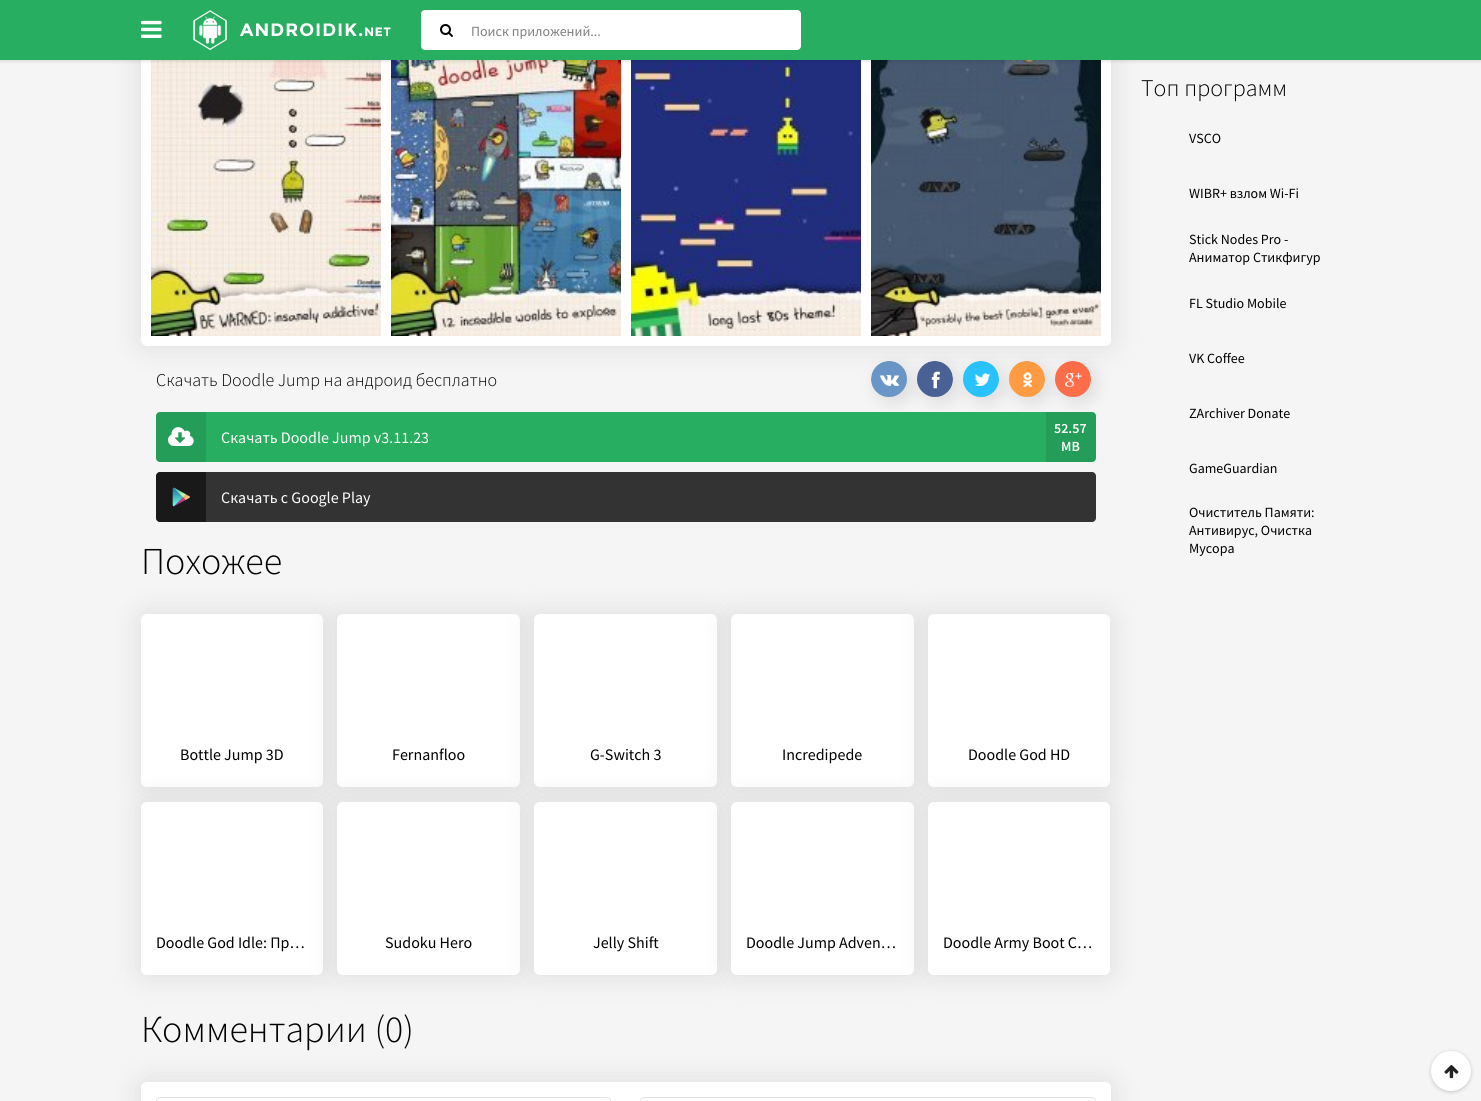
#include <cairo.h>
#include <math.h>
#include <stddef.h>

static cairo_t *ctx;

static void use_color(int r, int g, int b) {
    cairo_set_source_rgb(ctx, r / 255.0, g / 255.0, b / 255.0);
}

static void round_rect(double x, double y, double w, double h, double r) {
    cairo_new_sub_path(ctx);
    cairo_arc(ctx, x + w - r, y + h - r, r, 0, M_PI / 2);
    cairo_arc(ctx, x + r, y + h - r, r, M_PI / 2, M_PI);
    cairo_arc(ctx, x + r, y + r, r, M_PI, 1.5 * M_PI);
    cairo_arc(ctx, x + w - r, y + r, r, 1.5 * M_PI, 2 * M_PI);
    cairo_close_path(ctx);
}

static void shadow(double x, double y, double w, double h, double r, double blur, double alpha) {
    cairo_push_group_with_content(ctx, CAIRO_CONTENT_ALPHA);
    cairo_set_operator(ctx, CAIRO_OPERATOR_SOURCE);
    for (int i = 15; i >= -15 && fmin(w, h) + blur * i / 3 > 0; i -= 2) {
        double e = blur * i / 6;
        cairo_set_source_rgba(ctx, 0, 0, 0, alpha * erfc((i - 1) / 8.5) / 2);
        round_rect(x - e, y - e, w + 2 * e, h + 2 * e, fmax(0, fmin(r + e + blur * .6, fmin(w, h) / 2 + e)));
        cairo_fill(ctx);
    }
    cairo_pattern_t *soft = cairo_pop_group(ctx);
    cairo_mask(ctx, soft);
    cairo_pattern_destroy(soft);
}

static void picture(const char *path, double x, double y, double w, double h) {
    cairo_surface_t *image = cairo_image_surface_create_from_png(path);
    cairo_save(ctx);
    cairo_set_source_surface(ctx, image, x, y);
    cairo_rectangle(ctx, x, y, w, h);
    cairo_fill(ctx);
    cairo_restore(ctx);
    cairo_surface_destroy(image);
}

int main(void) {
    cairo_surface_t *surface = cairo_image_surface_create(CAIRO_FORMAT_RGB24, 1481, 1101);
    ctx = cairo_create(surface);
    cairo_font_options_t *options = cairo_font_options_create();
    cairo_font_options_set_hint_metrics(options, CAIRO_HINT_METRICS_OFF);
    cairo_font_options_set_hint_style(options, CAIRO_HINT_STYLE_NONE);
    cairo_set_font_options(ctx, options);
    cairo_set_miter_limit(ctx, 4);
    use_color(245, 245, 245);
    cairo_paint(ctx);
    use_color(0, 0, 0);
    shadow(876, 366, 36, 36, 18, 8, 0.1);
    picture("img8.png", 871, 361, 36, 36);
    shadow(922, 366, 36, 36, 18, 8, 0.1);
    picture("img9.png", 917, 361, 36, 36);
    shadow(968, 366, 36, 36, 18, 8, 0.1);
    picture("img10.png", 963, 361, 36, 36);
    shadow(1014, 366, 36, 36, 18, 8, 0.1);
    picture("img11.png", 1009, 361, 36, 36);
    shadow(1060, 366, 36, 36, 18, 8, 0.1);
    picture("img12.png", 1055, 361, 36, 36);
    shadow(141, -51, 970, 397, 6, 15, 0.1);
    use_color(255, 255, 255);
    round_rect(141, -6, 970, 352, 6);
    cairo_fill(ctx);
    picture("img4.png", 151, 60, 230, 276);
    picture("img5.png", 391, 60, 230, 276);
    picture("img6.png", 631, 60, 230, 276);
    picture("img7.png", 871, 60, 230, 276);
    use_color(0, 0, 0);
    shadow(0, 0, 1481, 60, 0, 2.5, 0.2);
    use_color(39, 174, 96);
    cairo_rectangle(ctx, 0, 0, 1481, 60);
    cairo_fill(ctx);
    picture("img1.png", 141, 20, 21, 18);
    picture("img2.png", 193, 10, 198, 40);
    use_color(255, 255, 255);
    round_rect(421, 10, 380, 40, 4);
    cairo_fill(ctx);
    picture("img3.png", 440, 24, 13, 13);
    cairo_select_font_face(ctx, "Source Sans Pro", CAIRO_FONT_SLANT_NORMAL, CAIRO_FONT_WEIGHT_NORMAL);
    cairo_set_font_size(ctx, 14);
    use_color(128, 128, 128);
    cairo_move_to(ctx, 471, 36);
    cairo_show_text(ctx, "Поиск приложений...");
    cairo_select_font_face(ctx, "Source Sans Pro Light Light", CAIRO_FONT_SLANT_NORMAL, CAIRO_FONT_WEIGHT_NORMAL);
    cairo_set_font_size(ctx, 24);
    use_color(0, 0, 0);
    cairo_move_to(ctx, 1141, 96);
    cairo_show_text(ctx, "Топ программ");
    cairo_select_font_face(ctx, "Source Sans Pro", CAIRO_FONT_SLANT_NORMAL, CAIRO_FONT_WEIGHT_NORMAL);
    cairo_set_font_size(ctx, 14);
    cairo_move_to(ctx, 1189, 143);
    cairo_show_text(ctx, "VSCO");
    cairo_move_to(ctx, 1189, 198);
    cairo_show_text(ctx, "WIBR+ взлом Wi-Fi");
    cairo_move_to(ctx, 1189, 244);
    cairo_show_text(ctx, "Stick Nodes Pro -");
    cairo_move_to(ctx, 1189, 262);
    cairo_show_text(ctx, "Аниматор Стикфигур");
    cairo_move_to(ctx, 1189, 308);
    cairo_show_text(ctx, "FL Studio Mobile");
    cairo_move_to(ctx, 1189, 363);
    cairo_show_text(ctx, "VK Coffee");
    cairo_move_to(ctx, 1189, 418);
    cairo_show_text(ctx, "ZArchiver Donate");
    cairo_move_to(ctx, 1189, 473);
    cairo_show_text(ctx, "GameGuardian");
    cairo_move_to(ctx, 1189, 517);
    cairo_show_text(ctx, "Очиститель Памяти:");
    cairo_move_to(ctx, 1189, 535);
    cairo_show_text(ctx, "Антивирус, Очистка");
    cairo_move_to(ctx, 1189, 553);
    cairo_show_text(ctx, "Мусора");
    cairo_select_font_face(ctx, "Source Sans Pro Light Light", CAIRO_FONT_SLANT_NORMAL, CAIRO_FONT_WEIGHT_NORMAL);
    cairo_set_font_size(ctx, 18);
    cairo_move_to(ctx, 156, 386);
    cairo_show_text(ctx, "Скачать Doodle Jump на андроид бесплатно");
    use_color(39, 174, 96);
    round_rect(156, 412, 940, 50, 4);
    cairo_fill(ctx);
    cairo_set_source_rgba(ctx, 0, 0, 0, 0.1);
    cairo_new_path(ctx);
    cairo_move_to(ctx, 160, 412);
    cairo_line_to(ctx, 206, 412);
    cairo_line_to(ctx, 206, 462);
    cairo_line_to(ctx, 160, 462);
    cairo_curve_to(ctx, 158, 462, 156, 460, 156, 458);
    cairo_line_to(ctx, 156, 416);
    cairo_curve_to(ctx, 156, 414, 158, 412, 160, 412);
    cairo_close_path(ctx);
    cairo_fill(ctx);
    picture("img13.png", 168, 427, 26, 19);
    cairo_select_font_face(ctx, "Source Sans Pro", CAIRO_FONT_SLANT_NORMAL, CAIRO_FONT_WEIGHT_NORMAL);
    cairo_set_font_size(ctx, 16);
    use_color(255, 255, 255);
    cairo_move_to(ctx, 221, 443);
    cairo_show_text(ctx, "Скачать Doodle Jump v3.11.23");
    cairo_set_source_rgba(ctx, 0, 0, 0, 0.1);
    cairo_new_path(ctx);
    cairo_move_to(ctx, 1046, 412);
    cairo_line_to(ctx, 1092, 412);
    cairo_curve_to(ctx, 1094, 412, 1096, 414, 1096, 416);
    cairo_line_to(ctx, 1096, 458);
    cairo_curve_to(ctx, 1096, 460, 1094, 462, 1092, 462);
    cairo_line_to(ctx, 1046, 462);
    cairo_close_path(ctx);
    cairo_fill(ctx);
    cairo_select_font_face(ctx, "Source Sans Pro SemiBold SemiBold", CAIRO_FONT_SLANT_NORMAL, CAIRO_FONT_WEIGHT_NORMAL);
    cairo_set_font_size(ctx, 14);
    use_color(255, 255, 255);
    cairo_move_to(ctx, 1054, 433);
    cairo_show_text(ctx, "52.57");
    cairo_move_to(ctx, 1061, 451);
    cairo_show_text(ctx, "MB");
    use_color(51, 51, 51);
    round_rect(156, 472, 940, 50, 4);
    cairo_fill(ctx);
    cairo_set_source_rgba(ctx, 0, 0, 0, 0.5);
    cairo_new_path(ctx);
    cairo_move_to(ctx, 160, 472);
    cairo_line_to(ctx, 206, 472);
    cairo_line_to(ctx, 206, 522);
    cairo_line_to(ctx, 160, 522);
    cairo_curve_to(ctx, 158, 522, 156, 520, 156, 518);
    cairo_line_to(ctx, 156, 476);
    cairo_curve_to(ctx, 156, 474, 158, 472, 160, 472);
    cairo_close_path(ctx);
    cairo_fill(ctx);
    picture("img14.png", 172, 487, 18, 20);
    cairo_select_font_face(ctx, "Source Sans Pro", CAIRO_FONT_SLANT_NORMAL, CAIRO_FONT_WEIGHT_NORMAL);
    cairo_set_font_size(ctx, 16);
    use_color(255, 255, 255);
    cairo_move_to(ctx, 221, 503);
    cairo_show_text(ctx, "Скачать с Google Play");
    cairo_select_font_face(ctx, "Source Sans Pro Light Light", CAIRO_FONT_SLANT_NORMAL, CAIRO_FONT_WEIGHT_NORMAL);
    cairo_set_font_size(ctx, 38);
    use_color(0, 0, 0);
    cairo_move_to(ctx, 141, 574);
    cairo_show_text(ctx, "Похожее");
    use_color(0, 0, 0);
    shadow(141, 614, 182, 173, 6, 15, 0.1);
    use_color(255, 255, 255);
    round_rect(141, 614, 182, 173, 6);
    cairo_fill(ctx);
    cairo_select_font_face(ctx, "Source Sans Pro", CAIRO_FONT_SLANT_NORMAL, CAIRO_FONT_WEIGHT_NORMAL);
    cairo_set_font_size(ctx, 16);
    use_color(0, 0, 0);
    cairo_move_to(ctx, 180, 760);
    cairo_show_text(ctx, "Bottle Jump 3D");
    use_color(0, 0, 0);
    shadow(337, 614, 183, 173, 6, 15, 0.1);
    use_color(255, 255, 255);
    round_rect(337, 614, 183, 173, 6);
    cairo_fill(ctx);
    use_color(0, 0, 0);
    cairo_move_to(ctx, 392, 760);
    cairo_show_text(ctx, "Fernanfloo");
    use_color(0, 0, 0);
    shadow(534, 614, 183, 173, 6, 15, 0.1);
    use_color(255, 255, 255);
    round_rect(534, 614, 183, 173, 6);
    cairo_fill(ctx);
    use_color(0, 0, 0);
    cairo_move_to(ctx, 590, 760);
    cairo_show_text(ctx, "G-Switch 3");
    use_color(0, 0, 0);
    shadow(731, 614, 183, 173, 6, 15, 0.1);
    use_color(255, 255, 255);
    round_rect(731, 614, 183, 173, 6);
    cairo_fill(ctx);
    use_color(0, 0, 0);
    cairo_move_to(ctx, 782, 760);
    cairo_show_text(ctx, "Incredipede");
    use_color(0, 0, 0);
    shadow(928, 614, 182, 173, 6, 15, 0.1);
    use_color(255, 255, 255);
    round_rect(928, 614, 182, 173, 6);
    cairo_fill(ctx);
    use_color(0, 0, 0);
    cairo_move_to(ctx, 968, 760);
    cairo_show_text(ctx, "Doodle God HD");
    use_color(0, 0, 0);
    shadow(141, 802, 182, 173, 6, 15, 0.1);
    use_color(255, 255, 255);
    round_rect(141, 802, 182, 173, 6);
    cairo_fill(ctx);
    use_color(0, 0, 0);
    cairo_move_to(ctx, 156, 948);
    cairo_show_text(ctx, "Doodle God Idle: Пр…");
    use_color(0, 0, 0);
    shadow(337, 802, 183, 173, 6, 15, 0.1);
    use_color(255, 255, 255);
    round_rect(337, 802, 183, 173, 6);
    cairo_fill(ctx);
    use_color(0, 0, 0);
    cairo_move_to(ctx, 385, 948);
    cairo_show_text(ctx, "Sudoku Hero");
    use_color(0, 0, 0);
    shadow(534, 802, 183, 173, 6, 15, 0.1);
    use_color(255, 255, 255);
    round_rect(534, 802, 183, 173, 6);
    cairo_fill(ctx);
    use_color(0, 0, 0);
    cairo_move_to(ctx, 593, 948);
    cairo_show_text(ctx, "Jelly Shift");
    use_color(0, 0, 0);
    shadow(731, 802, 183, 173, 6, 15, 0.1);
    use_color(255, 255, 255);
    round_rect(731, 802, 183, 173, 6);
    cairo_fill(ctx);
    use_color(0, 0, 0);
    cairo_move_to(ctx, 746, 948);
    cairo_show_text(ctx, "Doodle Jump Adven…");
    use_color(0, 0, 0);
    shadow(928, 802, 182, 173, 6, 15, 0.1);
    use_color(255, 255, 255);
    round_rect(928, 802, 182, 173, 6);
    cairo_fill(ctx);
    use_color(0, 0, 0);
    cairo_move_to(ctx, 943, 948);
    cairo_show_text(ctx, "Doodle Army Boot C…");
    use_color(0, 0, 0);
    shadow(141, 1082, 970, 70, 6, 15, 0.1);
    cairo_select_font_face(ctx, "Source Sans Pro Light Light", CAIRO_FONT_SLANT_NORMAL, CAIRO_FONT_WEIGHT_NORMAL);
    cairo_set_font_size(ctx, 38);
    use_color(0, 0, 0);
    cairo_move_to(ctx, 141, 1042);
    cairo_show_text(ctx, "Комментарии (0)");
    use_color(255, 255, 255);
    round_rect(141, 1082, 970, 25, 6);
    cairo_fill(ctx);
    round_rect(156.5, 1097.5, 454, 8, 3.5);
    use_color(227, 227, 227);
    cairo_set_line_width(ctx, 1);
    cairo_stroke(ctx);
    round_rect(640.5, 1097.5, 455, 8, 3.5);
    cairo_stroke(ctx);
    use_color(0, 0, 0);
    shadow(1431, 1052, 40, 40, 20, 2, 0.2);
    use_color(255, 255, 255);
    cairo_arc(ctx, 1451, 1071, 20, 0, 2 * M_PI);
    cairo_fill(ctx);
    picture("img15.png", 1444, 1065, 15, 14);
    cairo_surface_write_to_png(surface, "result.png");
    cairo_font_options_destroy(options);
    cairo_destroy(ctx);
    cairo_surface_destroy(surface);
    return 0;
}
